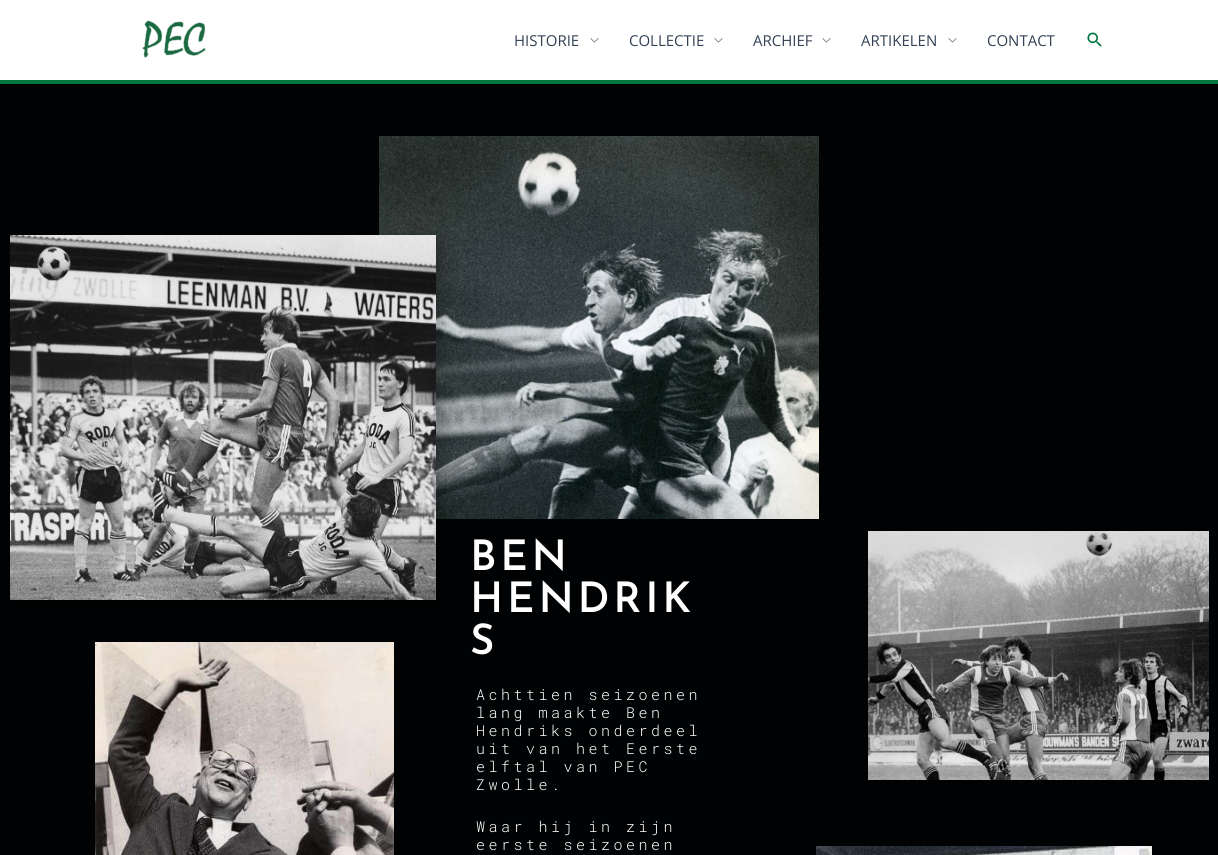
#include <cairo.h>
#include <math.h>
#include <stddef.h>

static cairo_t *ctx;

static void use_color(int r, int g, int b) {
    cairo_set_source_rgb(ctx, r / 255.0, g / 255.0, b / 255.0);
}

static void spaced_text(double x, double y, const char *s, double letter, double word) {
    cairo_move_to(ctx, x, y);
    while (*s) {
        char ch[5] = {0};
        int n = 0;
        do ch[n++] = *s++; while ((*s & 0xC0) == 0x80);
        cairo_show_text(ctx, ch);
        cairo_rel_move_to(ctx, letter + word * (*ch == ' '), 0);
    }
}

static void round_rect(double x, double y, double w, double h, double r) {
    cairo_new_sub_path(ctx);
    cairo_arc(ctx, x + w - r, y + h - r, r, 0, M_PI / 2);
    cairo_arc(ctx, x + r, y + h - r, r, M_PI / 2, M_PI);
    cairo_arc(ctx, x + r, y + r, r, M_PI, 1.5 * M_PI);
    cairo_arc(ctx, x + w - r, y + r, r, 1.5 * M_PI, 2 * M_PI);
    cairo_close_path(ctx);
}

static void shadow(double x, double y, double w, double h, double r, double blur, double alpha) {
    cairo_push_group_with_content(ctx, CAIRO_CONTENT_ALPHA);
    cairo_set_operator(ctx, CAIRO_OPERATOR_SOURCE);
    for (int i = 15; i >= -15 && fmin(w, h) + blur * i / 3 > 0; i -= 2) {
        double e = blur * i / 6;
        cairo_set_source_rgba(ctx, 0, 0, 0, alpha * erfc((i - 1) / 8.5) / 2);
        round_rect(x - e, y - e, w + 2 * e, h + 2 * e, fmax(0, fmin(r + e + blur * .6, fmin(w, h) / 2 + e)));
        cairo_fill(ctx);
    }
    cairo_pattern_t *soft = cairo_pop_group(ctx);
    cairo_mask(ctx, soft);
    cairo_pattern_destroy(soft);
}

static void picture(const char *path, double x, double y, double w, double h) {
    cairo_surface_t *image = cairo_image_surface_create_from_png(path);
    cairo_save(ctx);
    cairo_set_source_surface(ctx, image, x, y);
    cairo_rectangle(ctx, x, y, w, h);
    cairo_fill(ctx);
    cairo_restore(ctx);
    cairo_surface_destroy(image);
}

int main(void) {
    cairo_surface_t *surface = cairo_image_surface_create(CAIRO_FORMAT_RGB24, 1218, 855);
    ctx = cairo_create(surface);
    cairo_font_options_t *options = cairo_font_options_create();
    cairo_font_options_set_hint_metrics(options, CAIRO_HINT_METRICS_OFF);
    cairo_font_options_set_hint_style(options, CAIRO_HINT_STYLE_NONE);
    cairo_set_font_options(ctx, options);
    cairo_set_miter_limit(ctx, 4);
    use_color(255, 255, 255);
    cairo_paint(ctx);
    use_color(0, 117, 64);
    cairo_rectangle(ctx, 0, 80, 1218, 4);
    cairo_fill(ctx);
    picture("img1.png", 142, 20, 64, 38);
    cairo_select_font_face(ctx, "Open Sans", CAIRO_FONT_SLANT_NORMAL, CAIRO_FONT_WEIGHT_NORMAL);
    cairo_set_font_size(ctx, 15);
    use_color(51, 65, 85);
    cairo_move_to(ctx, 514, 46);
    cairo_show_text(ctx, "HISTORIE");
    picture("img2.png", 590, 38, 9, 5);
    cairo_move_to(ctx, 629, 46);
    cairo_show_text(ctx, "COLLECTIE");
    picture("img2.png", 714, 38, 9, 5);
    cairo_move_to(ctx, 753, 46);
    cairo_show_text(ctx, "ARCHIEF");
    picture("img2.png", 822, 38, 9, 5);
    cairo_move_to(ctx, 861, 46);
    cairo_show_text(ctx, "ARTIKELEN");
    picture("img2.png", 948, 38, 9, 5);
    cairo_move_to(ctx, 987, 46);
    cairo_show_text(ctx, "CONTACT");
    picture("img3.png", 1087, 32, 15, 15);
    use_color(0, 2, 3);
    cairo_rectangle(ctx, 0, 84, 1218, 771);
    cairo_fill(ctx);
    picture("img6.png", 379, 136, 440, 383);
    use_color(0, 0, 0);
    shadow(13, 238, 428, 367, 0, 10, 0.32);
    picture("img4.png", 10, 235, 426, 365);
    picture("img5.png", 95, 642, 299, 213);
    cairo_select_font_face(ctx, "Josefin Sans SemiBold", CAIRO_FONT_SLANT_NORMAL, CAIRO_FONT_WEIGHT_NORMAL);
    cairo_set_font_size(ctx, 42);
    use_color(255, 255, 255);
    spaced_text(470, 570, "BEN", 3.75, 0);
    spaced_text(470, 612, "HENDRIK", 3.75, 0);
    spaced_text(470, 654, "S", 3.75, 0);
    cairo_select_font_face(ctx, "Roboto Mono Light", CAIRO_FONT_SLANT_NORMAL, CAIRO_FONT_WEIGHT_NORMAL);
    cairo_set_font_size(ctx, 15);
    spaced_text(476, 700, "Achttien seizoenen", 3.5, 0);
    spaced_text(476, 718, "lang maakte Ben", 3.5, 0);
    spaced_text(476, 736, "Hendriks onderdeel", 3.5, 0);
    spaced_text(476, 754, "uit van het Eerste", 3.5, 0);
    spaced_text(476, 772, "elftal van PEC", 3.5, 0);
    spaced_text(476, 790, "Zwolle.", 3.5, 0);
    spaced_text(476, 832, "Waar hij in zijn", 3.5, 0);
    spaced_text(476, 850, "eerste seizoenen", 3.5, 0);
    picture("img7.png", 868, 531, 341, 249);
    picture("img8.png", 816, 846, 336, 9);
    cairo_surface_write_to_png(surface, "result.png");
    cairo_font_options_destroy(options);
    cairo_destroy(ctx);
    cairo_surface_destroy(surface);
    return 0;
}
